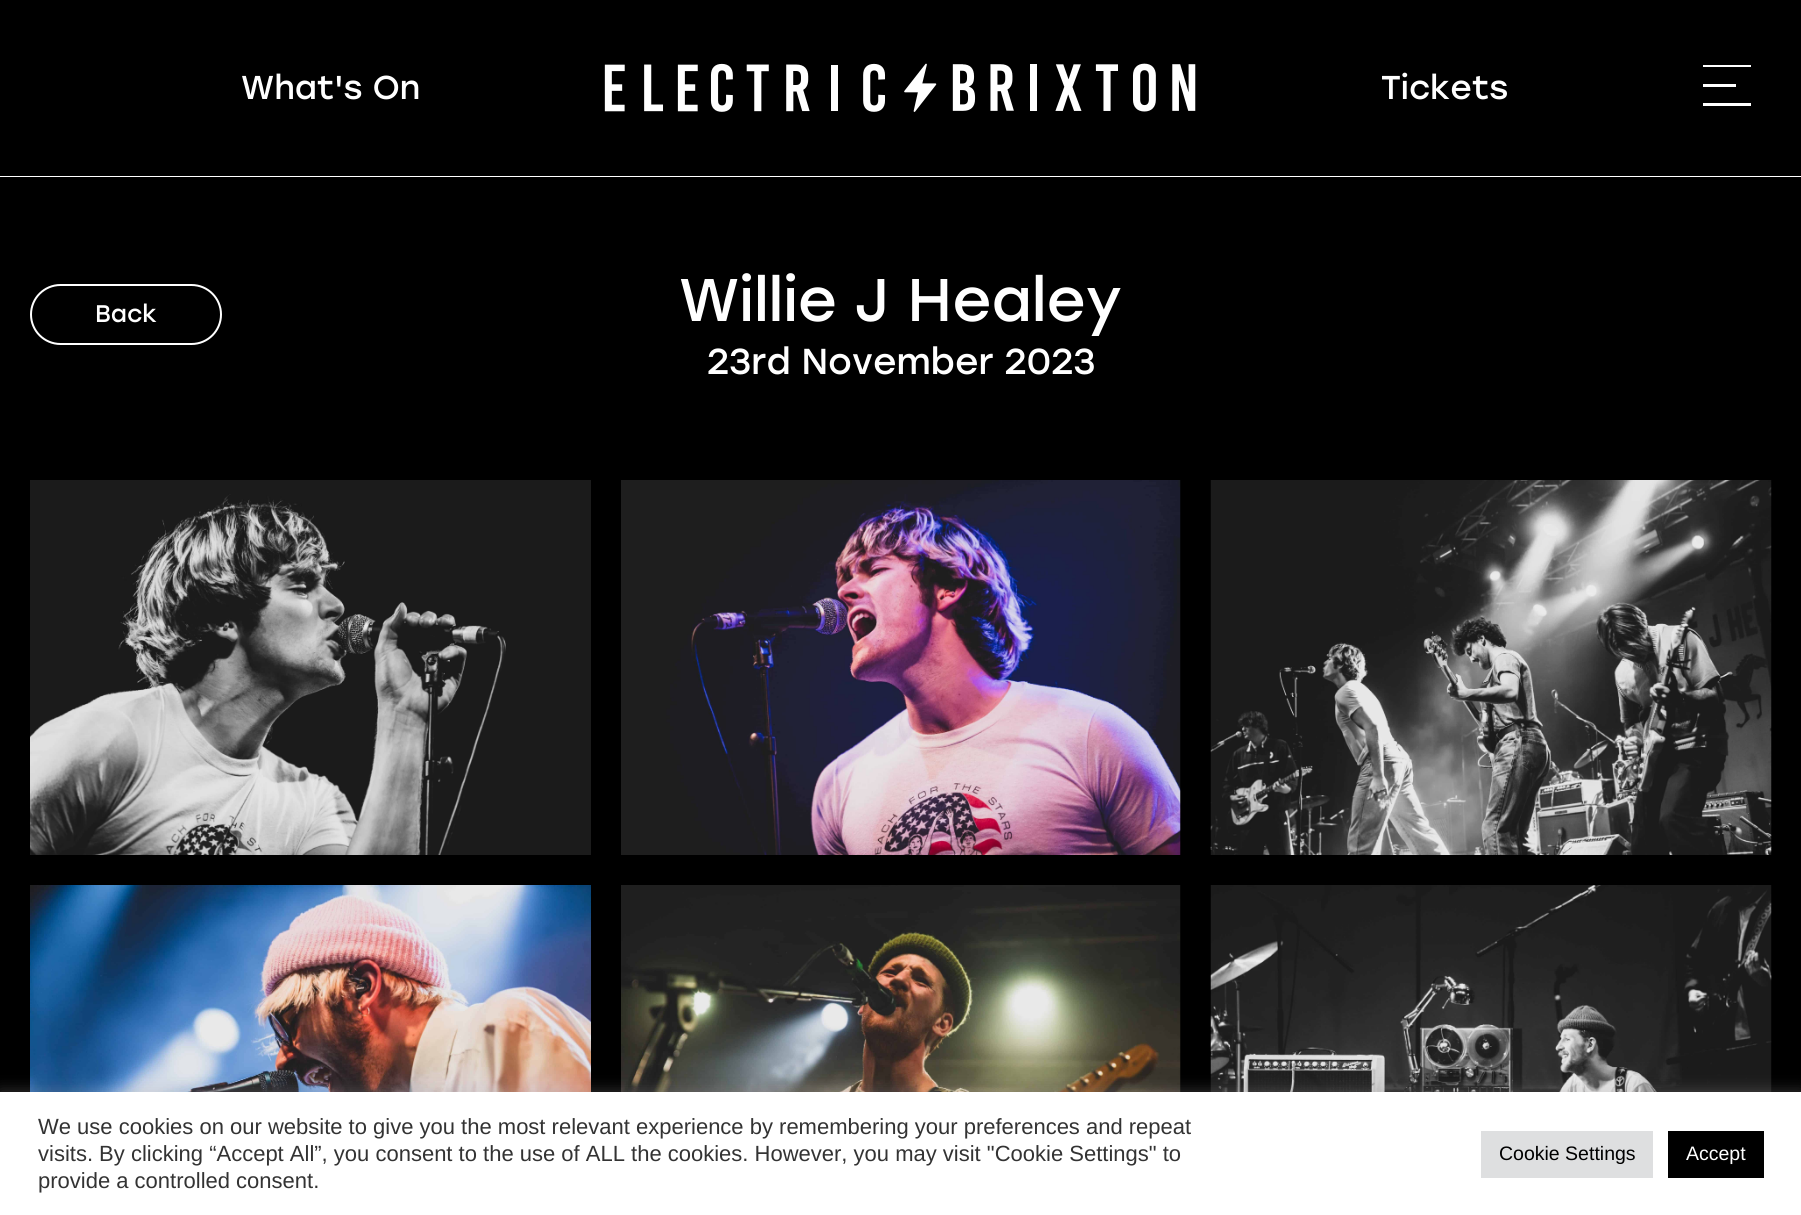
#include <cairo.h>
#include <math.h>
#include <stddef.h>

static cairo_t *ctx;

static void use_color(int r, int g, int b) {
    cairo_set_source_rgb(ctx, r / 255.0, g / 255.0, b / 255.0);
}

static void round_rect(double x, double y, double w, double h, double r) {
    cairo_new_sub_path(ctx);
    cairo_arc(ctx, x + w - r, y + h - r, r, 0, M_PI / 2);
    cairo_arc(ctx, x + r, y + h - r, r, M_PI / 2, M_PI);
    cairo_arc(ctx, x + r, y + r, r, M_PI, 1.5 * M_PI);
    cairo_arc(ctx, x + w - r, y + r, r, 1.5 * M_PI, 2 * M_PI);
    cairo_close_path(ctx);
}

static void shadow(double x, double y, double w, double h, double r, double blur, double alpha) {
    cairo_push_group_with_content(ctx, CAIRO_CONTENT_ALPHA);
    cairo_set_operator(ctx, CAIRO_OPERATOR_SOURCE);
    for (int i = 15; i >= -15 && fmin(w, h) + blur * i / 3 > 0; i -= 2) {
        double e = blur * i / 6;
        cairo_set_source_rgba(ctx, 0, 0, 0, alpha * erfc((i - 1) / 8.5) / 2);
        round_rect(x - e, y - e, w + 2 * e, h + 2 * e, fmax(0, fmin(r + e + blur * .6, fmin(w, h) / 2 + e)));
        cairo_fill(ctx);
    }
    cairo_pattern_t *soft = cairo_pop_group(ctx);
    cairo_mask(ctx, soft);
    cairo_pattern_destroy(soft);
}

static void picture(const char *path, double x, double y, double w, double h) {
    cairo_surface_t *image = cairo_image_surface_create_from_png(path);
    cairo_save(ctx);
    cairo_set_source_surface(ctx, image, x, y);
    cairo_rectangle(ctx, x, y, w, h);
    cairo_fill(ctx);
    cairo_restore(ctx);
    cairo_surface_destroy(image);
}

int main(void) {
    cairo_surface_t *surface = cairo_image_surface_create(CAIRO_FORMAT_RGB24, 1801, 1215);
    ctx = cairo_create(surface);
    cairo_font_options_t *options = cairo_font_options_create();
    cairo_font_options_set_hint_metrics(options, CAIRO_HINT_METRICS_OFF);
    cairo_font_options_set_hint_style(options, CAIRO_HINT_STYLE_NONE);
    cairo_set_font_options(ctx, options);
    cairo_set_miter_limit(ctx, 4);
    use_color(0, 0, 0);
    cairo_paint(ctx);
    use_color(255, 255, 255);
    cairo_rectangle(ctx, 0, 176, 1801, 1);
    cairo_fill(ctx);
    cairo_select_font_face(ctx, "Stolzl", CAIRO_FONT_SLANT_NORMAL, CAIRO_FONT_WEIGHT_NORMAL);
    cairo_set_font_size(ctx, 33);
    cairo_move_to(ctx, 241, 99);
    cairo_show_text(ctx, "What's On");
    picture("img1.png", 604, 63, 592, 49);
    cairo_move_to(ctx, 1381, 99);
    cairo_show_text(ctx, "Tickets");
    cairo_rectangle(ctx, 1703, 65, 48, 2);
    cairo_fill(ctx);
    cairo_rectangle(ctx, 1703, 84, 33, 3);
    cairo_fill(ctx);
    cairo_rectangle(ctx, 1703, 103, 48, 3);
    cairo_fill(ctx);
    round_rect(31, 285, 190, 59, 29.5);
    cairo_stroke(ctx);
    cairo_set_font_size(ctx, 24);
    cairo_move_to(ctx, 95, 322);
    cairo_show_text(ctx, "Back");
    cairo_set_font_size(ctx, 60);
    cairo_move_to(ctx, 679, 321);
    cairo_show_text(ctx, "Willie J Healey");
    cairo_set_font_size(ctx, 36);
    cairo_move_to(ctx, 707, 374);
    cairo_show_text(ctx, "23rd November 2023");
    picture("img2.png", 30, 480, 561, 375);
    picture("img3.png", 621, 480, 560, 375);
    picture("img4.png", 1210, 480, 562, 375);
    picture("img5.png", 30, 885, 561, 207);
    picture("img6.png", 621, 885, 560, 207);
    picture("img7.png", 1210, 885, 562, 207);
    use_color(172, 171, 171);
    shadow(0, 1091, 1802, 123, 0, 7.5, 0.3);
    use_color(255, 255, 255);
    cairo_rectangle(ctx, 0, 1092, 1801, 123);
    cairo_fill(ctx);
    cairo_select_font_face(ctx, "Liberation Sans", CAIRO_FONT_SLANT_NORMAL, CAIRO_FONT_WEIGHT_NORMAL);
    cairo_set_font_size(ctx, 22);
    use_color(51, 51, 51);
    cairo_move_to(ctx, 38, 1134);
    cairo_show_text(ctx, "We use cookies on our website to give you the most relevant experience by remembering your preferences and repeat");
    cairo_move_to(ctx, 38, 1161);
    cairo_show_text(ctx, "visits. By clicking “Accept All”, you consent to the use of ALL the cookies. However, you may visit \"Cookie Settings\" to");
    cairo_move_to(ctx, 38, 1188);
    cairo_show_text(ctx, "provide a controlled consent.");
    use_color(222, 223, 224);
    cairo_rectangle(ctx, 1481, 1131, 172, 47);
    cairo_fill(ctx);
    cairo_set_font_size(ctx, 19.5);
    use_color(0, 0, 0);
    cairo_move_to(ctx, 1499, 1160);
    cairo_show_text(ctx, "Cookie Settings");
    cairo_rectangle(ctx, 1668, 1131, 96, 47);
    cairo_fill(ctx);
    use_color(255, 255, 255);
    cairo_move_to(ctx, 1686, 1160);
    cairo_show_text(ctx, "Accept");
    cairo_surface_write_to_png(surface, "result.png");
    cairo_font_options_destroy(options);
    cairo_destroy(ctx);
    cairo_surface_destroy(surface);
    return 0;
}
